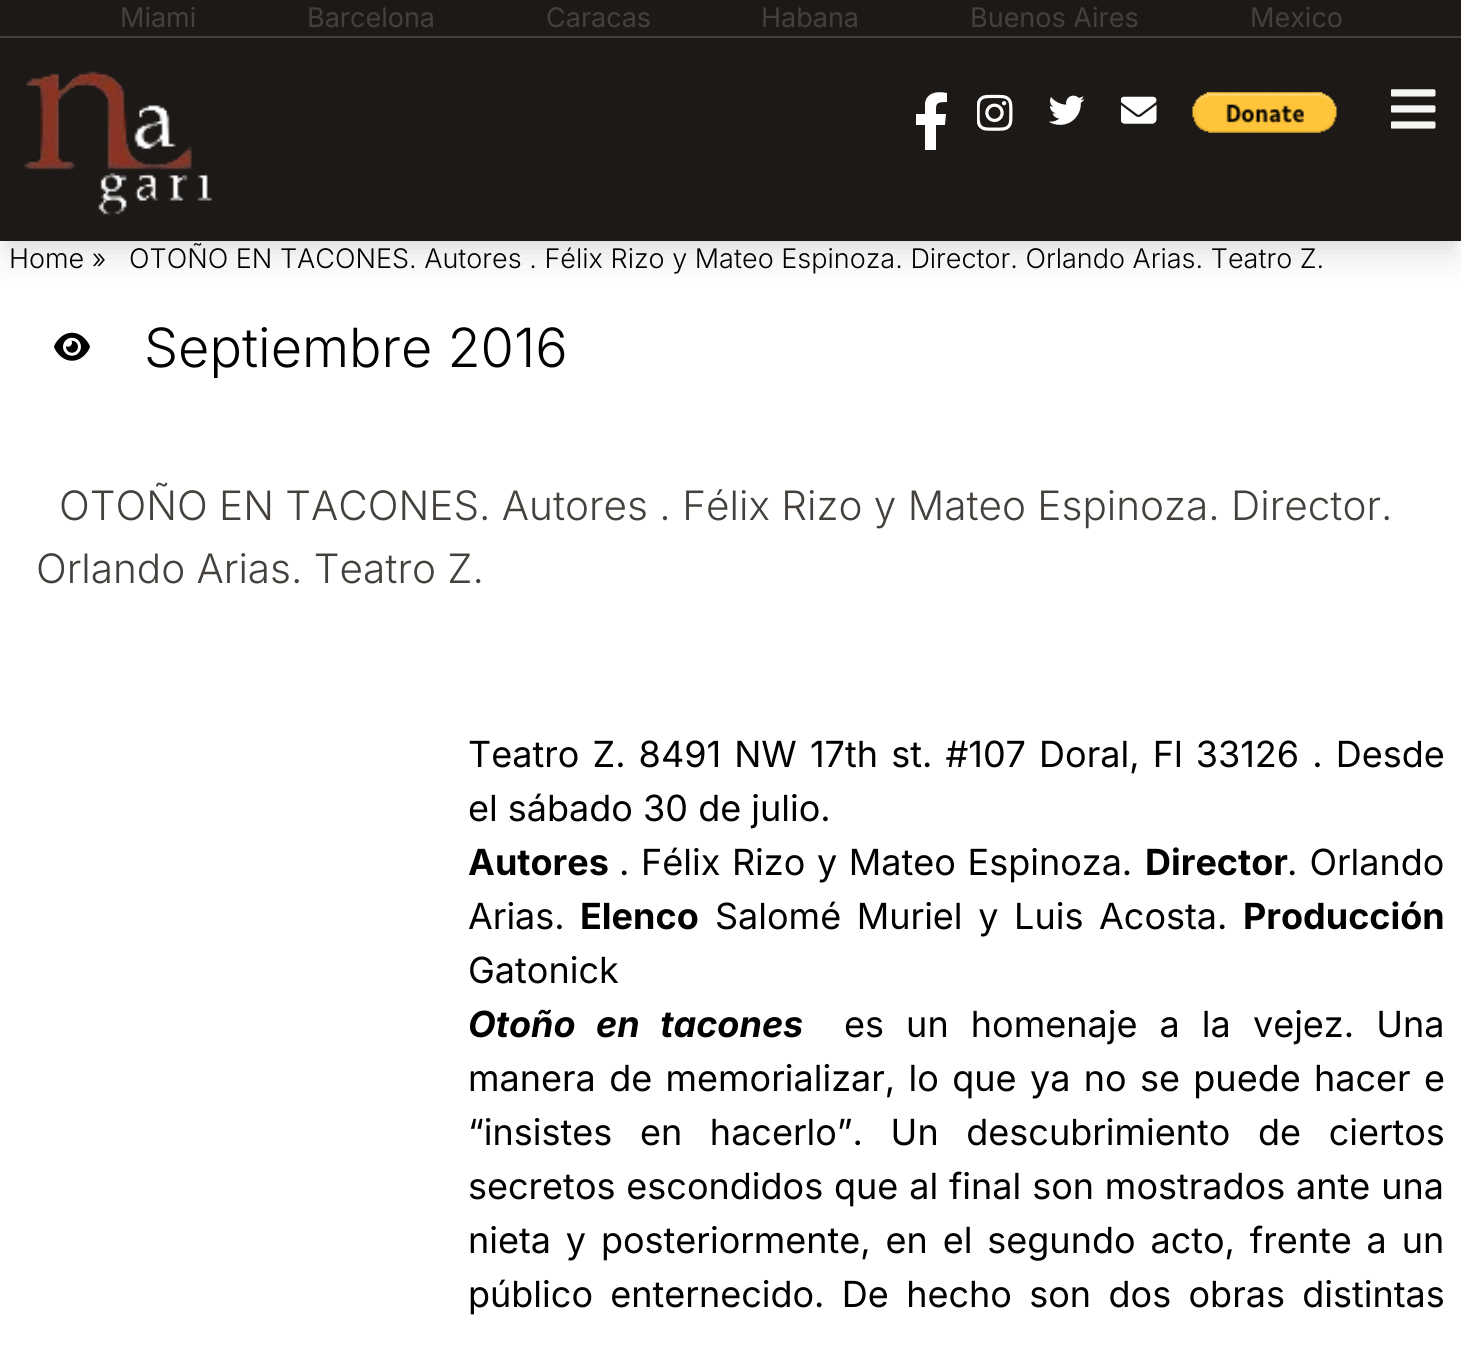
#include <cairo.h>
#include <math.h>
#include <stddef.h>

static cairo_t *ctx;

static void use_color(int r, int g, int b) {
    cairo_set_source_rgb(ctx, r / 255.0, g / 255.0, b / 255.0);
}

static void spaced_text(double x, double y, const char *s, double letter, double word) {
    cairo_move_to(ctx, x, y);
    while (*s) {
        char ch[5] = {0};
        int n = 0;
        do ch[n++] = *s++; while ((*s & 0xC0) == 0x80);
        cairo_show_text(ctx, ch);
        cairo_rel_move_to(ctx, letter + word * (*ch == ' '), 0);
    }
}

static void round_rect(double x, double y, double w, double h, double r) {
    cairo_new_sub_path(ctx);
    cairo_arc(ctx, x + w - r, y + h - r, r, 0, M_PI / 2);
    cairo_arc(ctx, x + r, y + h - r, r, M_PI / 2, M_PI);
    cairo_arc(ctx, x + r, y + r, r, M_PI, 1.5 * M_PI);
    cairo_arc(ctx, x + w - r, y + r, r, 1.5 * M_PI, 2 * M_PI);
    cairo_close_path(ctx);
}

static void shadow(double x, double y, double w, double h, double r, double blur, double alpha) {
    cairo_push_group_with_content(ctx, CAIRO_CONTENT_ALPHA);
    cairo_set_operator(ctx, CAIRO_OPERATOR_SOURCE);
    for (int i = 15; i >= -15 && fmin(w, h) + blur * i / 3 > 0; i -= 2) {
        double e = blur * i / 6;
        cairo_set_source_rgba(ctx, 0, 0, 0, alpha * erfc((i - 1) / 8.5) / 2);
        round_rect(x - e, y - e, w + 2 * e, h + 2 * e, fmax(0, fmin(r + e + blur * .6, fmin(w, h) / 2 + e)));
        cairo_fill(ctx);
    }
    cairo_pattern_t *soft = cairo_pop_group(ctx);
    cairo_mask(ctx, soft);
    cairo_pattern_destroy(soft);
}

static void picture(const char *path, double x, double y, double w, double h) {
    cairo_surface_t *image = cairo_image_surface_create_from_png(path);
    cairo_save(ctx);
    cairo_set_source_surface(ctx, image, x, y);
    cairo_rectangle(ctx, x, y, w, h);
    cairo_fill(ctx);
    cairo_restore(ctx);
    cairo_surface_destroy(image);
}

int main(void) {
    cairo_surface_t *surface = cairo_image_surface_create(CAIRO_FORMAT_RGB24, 1461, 1352);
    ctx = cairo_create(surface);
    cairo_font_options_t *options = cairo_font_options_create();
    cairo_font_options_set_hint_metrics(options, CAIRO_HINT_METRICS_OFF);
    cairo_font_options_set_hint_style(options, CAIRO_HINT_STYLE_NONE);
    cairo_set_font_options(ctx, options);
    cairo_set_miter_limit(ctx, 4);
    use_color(255, 255, 255);
    cairo_paint(ctx);
    use_color(28, 25, 23);
    cairo_rectangle(ctx, 0, 0, 1461, 36);
    cairo_fill(ctx);
    use_color(68, 64, 60);
    cairo_rectangle(ctx, 0, 36, 1461, 2);
    cairo_fill(ctx);
    use_color(0, 0, 0);
    shadow(7, 68, 1449, 189, 0, 17, 0.1);
    cairo_select_font_face(ctx, "Inter", CAIRO_FONT_SLANT_NORMAL, CAIRO_FONT_WEIGHT_NORMAL);
    cairo_set_font_size(ctx, 27);
    use_color(68, 64, 60);
    cairo_move_to(ctx, 120, 27);
    cairo_show_text(ctx, "Miami");
    cairo_move_to(ctx, 307, 27);
    cairo_show_text(ctx, "Barcelona");
    cairo_move_to(ctx, 546, 27);
    cairo_show_text(ctx, "Caracas");
    cairo_move_to(ctx, 761, 27);
    cairo_show_text(ctx, "Habana");
    cairo_move_to(ctx, 970, 27);
    cairo_show_text(ctx, "Buenos Aires");
    cairo_move_to(ctx, 1250, 27);
    cairo_show_text(ctx, "Mexico");
    use_color(0, 0, 0);
    shadow(9, 56, 1445, 185, 0, 7, 0.1);
    use_color(28, 25, 23);
    cairo_rectangle(ctx, 0, 38, 1461, 203);
    cairo_fill(ctx);
    picture("img1.png", 24, 71, 189, 146);
    use_color(255, 255, 255);
    cairo_new_path(ctx);
    cairo_move_to(ctx, 945, 125);
    cairo_line_to(ctx, 946, 114);
    cairo_line_to(ctx, 936, 114);
    cairo_curve_to(ctx, 936, 104, 935, 102, 947, 102);
    cairo_line_to(ctx, 947, 93);
    cairo_curve_to(ctx, 938, 91, 927, 92, 925, 103);
    cairo_line_to(ctx, 925, 114);
    cairo_line_to(ctx, 916, 114);
    cairo_line_to(ctx, 916, 125);
    cairo_line_to(ctx, 925, 125);
    cairo_line_to(ctx, 925, 150);
    cairo_line_to(ctx, 936, 150);
    cairo_line_to(ctx, 936, 125);
    cairo_close_path(ctx);
    cairo_fill(ctx);
    picture("img2.png", 977, 94, 36, 37);
    picture("img3.png", 1049, 95, 36, 30);
    picture("img4.png", 1121, 96, 36, 28);
    picture("img5.png", 1192, 92, 145, 41);
    picture("img6.png", 1391, 89, 45, 40);
    cairo_select_font_face(ctx, "Inter Light", CAIRO_FONT_SLANT_NORMAL, CAIRO_FONT_WEIGHT_NORMAL);
    use_color(0, 0, 0);
    cairo_move_to(ctx, 9, 268);
    cairo_show_text(ctx, "Home »");
    cairo_move_to(ctx, 129, 268);
    cairo_show_text(ctx, "OTOÑO EN TACONES. Autores . Félix Rizo y Mateo Espinoza. Director. Orlando Arias. Teatro Z.");
    picture("img7.png", 54, 332, 36, 29);
    cairo_set_font_size(ctx, 54);
    cairo_move_to(ctx, 144, 367);
    cairo_show_text(ctx, "Septiembre 2016");
    cairo_set_font_size(ctx, 40.5);
    use_color(68, 64, 60);
    cairo_move_to(ctx, 59, 520);
    cairo_show_text(ctx, "OTOÑO EN TACONES. Autores . Félix Rizo y Mateo Espinoza. Director.");
    cairo_move_to(ctx, 36, 583);
    cairo_show_text(ctx, "Orlando Arias. Teatro Z.");
    cairo_select_font_face(ctx, "Inter", CAIRO_FONT_SLANT_NORMAL, CAIRO_FONT_WEIGHT_NORMAL);
    cairo_set_font_size(ctx, 36);
    use_color(0, 0, 0);
    spaced_text(468, 767, "Teatro Z. 8491 NW 17th st. #107 Doral, Fl 33126 . Desde", 0, 3);
    cairo_move_to(ctx, 468, 821);
    cairo_show_text(ctx, "el sábado 30 de julio.");
    cairo_select_font_face(ctx, "Inter", CAIRO_FONT_SLANT_NORMAL, CAIRO_FONT_WEIGHT_BOLD);
    cairo_move_to(ctx, 468, 875);
    cairo_show_text(ctx, "Autores");
    cairo_select_font_face(ctx, "Inter", CAIRO_FONT_SLANT_NORMAL, CAIRO_FONT_WEIGHT_NORMAL);
    spaced_text(619, 875, ". Félix Rizo y Mateo Espinoza.", 0, 1.5);
    cairo_select_font_face(ctx, "Inter", CAIRO_FONT_SLANT_NORMAL, CAIRO_FONT_WEIGHT_BOLD);
    cairo_move_to(ctx, 1145, 875);
    cairo_show_text(ctx, "Director");
    cairo_select_font_face(ctx, "Inter", CAIRO_FONT_SLANT_NORMAL, CAIRO_FONT_WEIGHT_NORMAL);
    spaced_text(1287, 875, ". Orlando", 0, 2);
    cairo_move_to(ctx, 468, 929);
    cairo_show_text(ctx, "Arias.");
    cairo_select_font_face(ctx, "Inter", CAIRO_FONT_SLANT_NORMAL, CAIRO_FONT_WEIGHT_BOLD);
    cairo_move_to(ctx, 580, 929);
    cairo_show_text(ctx, "Elenco");
    cairo_select_font_face(ctx, "Inter", CAIRO_FONT_SLANT_NORMAL, CAIRO_FONT_WEIGHT_NORMAL);
    spaced_text(715, 929, "Salomé Muriel y Luis Acosta.", 0, 5.5);
    cairo_select_font_face(ctx, "Inter", CAIRO_FONT_SLANT_NORMAL, CAIRO_FONT_WEIGHT_BOLD);
    cairo_move_to(ctx, 1243, 929);
    cairo_show_text(ctx, "Producción");
    cairo_select_font_face(ctx, "Inter", CAIRO_FONT_SLANT_NORMAL, CAIRO_FONT_WEIGHT_NORMAL);
    cairo_move_to(ctx, 468, 983);
    cairo_show_text(ctx, "Gatonick");
    cairo_select_font_face(ctx, "Inter", CAIRO_FONT_SLANT_ITALIC, CAIRO_FONT_WEIGHT_BOLD);
    spaced_text(468, 1037, "Otoño en tacones", 0, 12);
    cairo_select_font_face(ctx, "Inter", CAIRO_FONT_SLANT_NORMAL, CAIRO_FONT_WEIGHT_NORMAL);
    spaced_text(844, 1037, "es un homenaje a la vejez. Una", 0, 12);
    spaced_text(468, 1091, "manera de memorializar, lo que ya no se puede hacer e", 0, 3.25);
    spaced_text(468, 1145, "“insistes en hacerlo”. Un descubrimiento de ciertos", 0, 17.5);
    spaced_text(468, 1199, "secretos escondidos que al final son mostrados ante una", 0, 0.75);
    spaced_text(468, 1253, "nieta y posteriormente, en el segundo acto, frente a un", 0, 4.75);
    spaced_text(468, 1307, "público enternecido. De hecho son dos obras distintas", 0, 7.25);
    cairo_surface_write_to_png(surface, "result.png");
    cairo_font_options_destroy(options);
    cairo_destroy(ctx);
    cairo_surface_destroy(surface);
    return 0;
}
